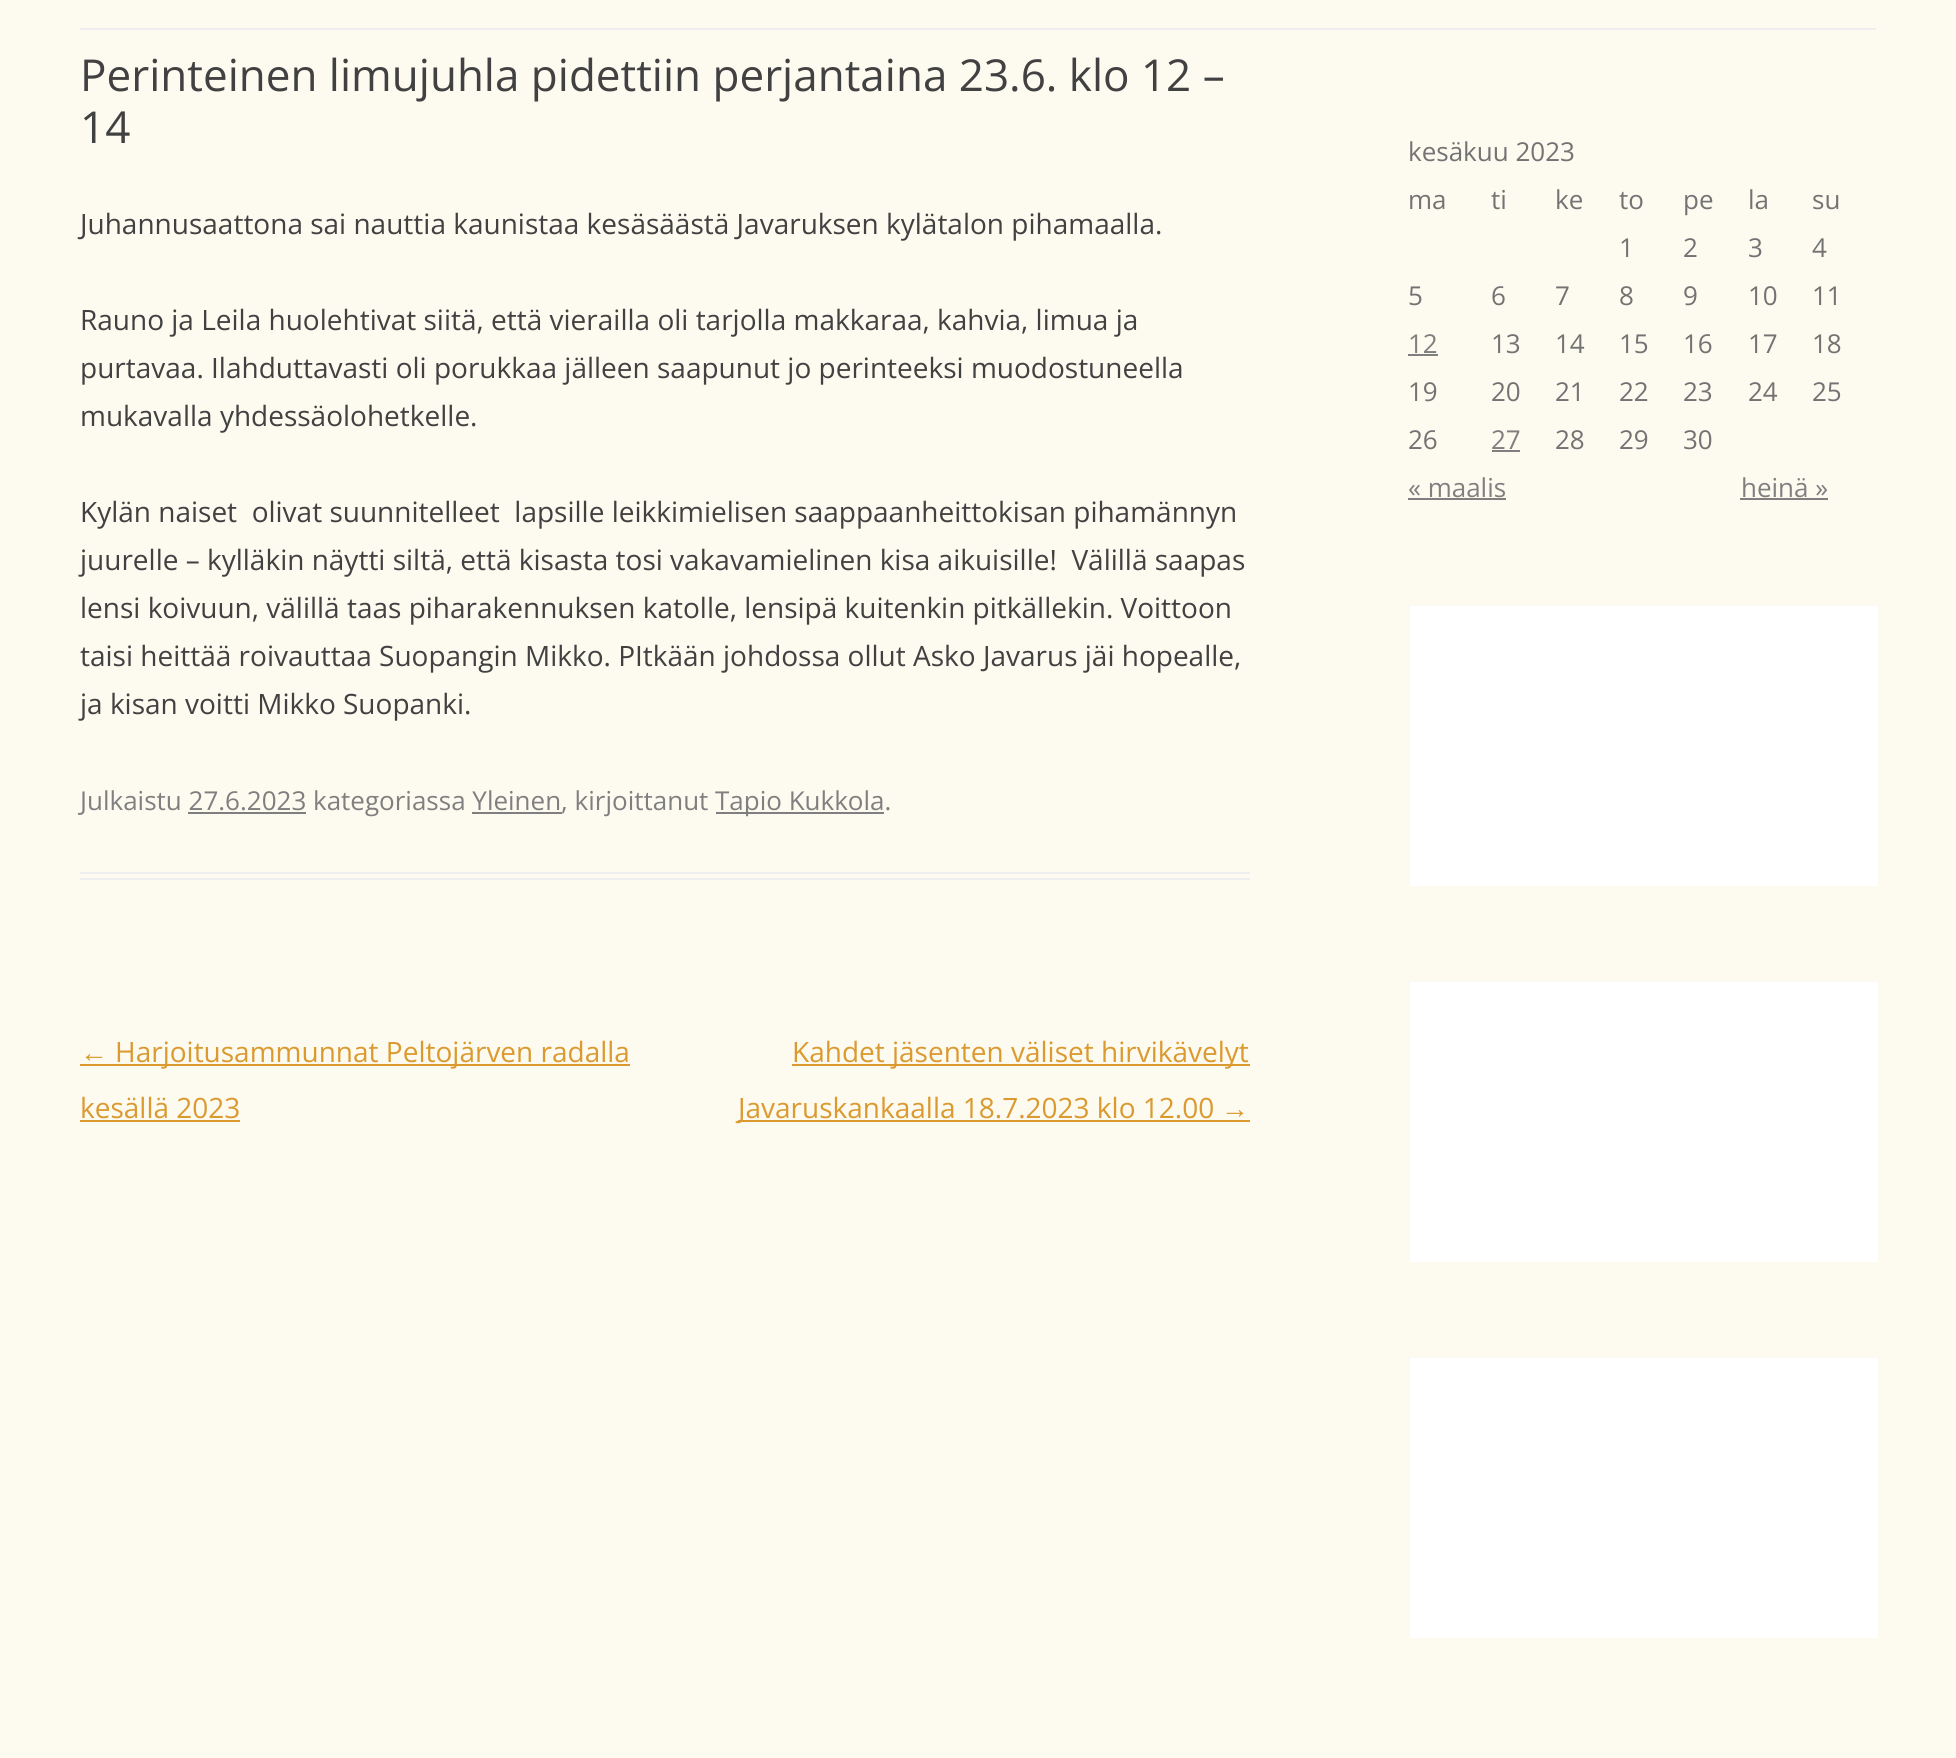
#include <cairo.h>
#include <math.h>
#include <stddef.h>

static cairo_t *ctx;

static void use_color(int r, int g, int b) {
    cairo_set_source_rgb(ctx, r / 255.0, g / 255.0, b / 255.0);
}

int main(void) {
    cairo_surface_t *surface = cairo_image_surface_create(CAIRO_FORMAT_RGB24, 1956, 1758);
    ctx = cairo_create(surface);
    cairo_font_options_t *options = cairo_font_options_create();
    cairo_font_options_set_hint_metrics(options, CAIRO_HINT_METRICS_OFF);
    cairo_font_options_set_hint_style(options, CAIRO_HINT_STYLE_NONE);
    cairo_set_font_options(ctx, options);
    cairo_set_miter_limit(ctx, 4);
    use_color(253, 250, 240);
    cairo_paint(ctx);
    use_color(238, 238, 238);
    cairo_rectangle(ctx, 80, 28, 1796, 2);
    cairo_fill(ctx);
    cairo_rectangle(ctx, 80, 872, 1170, 2);
    cairo_fill(ctx);
    cairo_rectangle(ctx, 80, 878, 1170, 2);
    cairo_fill(ctx);
    cairo_select_font_face(ctx, "Open Sans", CAIRO_FONT_SLANT_NORMAL, CAIRO_FONT_WEIGHT_NORMAL);
    cairo_set_font_size(ctx, 44);
    use_color(65, 65, 65);
    cairo_move_to(ctx, 80, 91);
    cairo_show_text(ctx, "Perinteinen limujuhla pidettiin perjantaina 23.6. klo 12 –");
    cairo_move_to(ctx, 80, 143);
    cairo_show_text(ctx, "14");
    cairo_set_font_size(ctx, 28);
    cairo_move_to(ctx, 80, 234);
    cairo_show_text(ctx, "Juhannusaattona sai nauttia kaunistaa kesäsäästä Javaruksen kylätalon pihamaalla.");
    cairo_move_to(ctx, 80, 330);
    cairo_show_text(ctx, "Rauno ja Leila huolehtivat siitä, että vierailla oli tarjolla makkaraa, kahvia, limua ja");
    cairo_move_to(ctx, 80, 378);
    cairo_show_text(ctx, "purtavaa. Ilahduttavasti oli porukkaa jälleen saapunut jo perinteeksi muodostuneella");
    cairo_move_to(ctx, 80, 426);
    cairo_show_text(ctx, "mukavalla yhdessäolohetkelle.");
    cairo_move_to(ctx, 80, 522);
    cairo_show_text(ctx, "Kylän naiset  olivat suunnitelleet  lapsille leikkimielisen saappaanheittokisan pihamännyn");
    cairo_move_to(ctx, 80, 570);
    cairo_show_text(ctx, "juurelle – kylläkin näytti siltä, että kisasta tosi vakavamielinen kisa aikuisille!  Välillä saapas");
    cairo_move_to(ctx, 80, 618);
    cairo_show_text(ctx, "lensi koivuun, välillä taas piharakennuksen katolle, lensipä kuitenkin pitkällekin. Voittoon");
    cairo_move_to(ctx, 80, 666);
    cairo_show_text(ctx, "taisi heittää roivauttaa Suopangin Mikko. PItkään johdossa ollut Asko Javarus jäi hopealle,");
    cairo_move_to(ctx, 80, 714);
    cairo_show_text(ctx, "ja kisan voitti Mikko Suopanki.");
    cairo_set_font_size(ctx, 26);
    use_color(127, 127, 127);
    cairo_move_to(ctx, 80, 810);
    cairo_show_text(ctx, "Julkaistu 27.6.2023 kategoriassa Yleinen, kirjoittanut");
    cairo_rectangle(ctx, 716, 812, 168, 2);
    cairo_fill(ctx);
    cairo_move_to(ctx, 715, 810);
    cairo_show_text(ctx, "Tapio Kukkola.");
    cairo_rectangle(ctx, 188, 812, 118, 2);
    cairo_fill(ctx);
    cairo_rectangle(ctx, 472, 812, 90, 2);
    cairo_fill(ctx);
    cairo_select_font_face(ctx, "Liberation Sans", CAIRO_FONT_SLANT_NORMAL, CAIRO_FONT_WEIGHT_NORMAL);
    cairo_set_font_size(ctx, 28);
    use_color(219, 154, 48);
    cairo_move_to(ctx, 80, 1062);
    cairo_show_text(ctx, "←");
    cairo_rectangle(ctx, 80, 1064, 550, 2);
    cairo_fill(ctx);
    cairo_select_font_face(ctx, "Open Sans", CAIRO_FONT_SLANT_NORMAL, CAIRO_FONT_WEIGHT_NORMAL);
    cairo_move_to(ctx, 115, 1062);
    cairo_show_text(ctx, "Harjoitusammunnat Peltojärven radalla");
    cairo_move_to(ctx, 80, 1118);
    cairo_show_text(ctx, "kesällä 2023");
    cairo_rectangle(ctx, 80, 1120, 160, 2);
    cairo_fill(ctx);
    cairo_rectangle(ctx, 792, 1064, 458, 2);
    cairo_fill(ctx);
    cairo_move_to(ctx, 792, 1062);
    cairo_show_text(ctx, "Kahdet jäsenten väliset hirvikävelyt");
    cairo_rectangle(ctx, 738, 1120, 512, 2);
    cairo_fill(ctx);
    cairo_move_to(ctx, 738, 1118);
    cairo_show_text(ctx, "Javaruskankaalla 18.7.2023 klo 12.00");
    cairo_select_font_face(ctx, "Liberation Sans", CAIRO_FONT_SLANT_NORMAL, CAIRO_FONT_WEIGHT_NORMAL);
    cairo_move_to(ctx, 1221, 1118);
    cairo_show_text(ctx, "→");
    cairo_select_font_face(ctx, "Open Sans", CAIRO_FONT_SLANT_NORMAL, CAIRO_FONT_WEIGHT_NORMAL);
    cairo_set_font_size(ctx, 26);
    use_color(115, 115, 115);
    cairo_move_to(ctx, 1408, 161);
    cairo_show_text(ctx, "kesäkuu 2023");
    cairo_move_to(ctx, 1408, 209);
    cairo_show_text(ctx, "ma");
    cairo_move_to(ctx, 1491, 209);
    cairo_show_text(ctx, "ti");
    cairo_move_to(ctx, 1555, 209);
    cairo_show_text(ctx, "ke");
    cairo_move_to(ctx, 1619, 209);
    cairo_show_text(ctx, "to");
    cairo_move_to(ctx, 1683, 209);
    cairo_show_text(ctx, "pe");
    cairo_move_to(ctx, 1748, 209);
    cairo_show_text(ctx, "la");
    cairo_move_to(ctx, 1812, 209);
    cairo_show_text(ctx, "su");
    cairo_move_to(ctx, 1619, 257);
    cairo_show_text(ctx, "1");
    cairo_move_to(ctx, 1683, 257);
    cairo_show_text(ctx, "2");
    cairo_move_to(ctx, 1748, 257);
    cairo_show_text(ctx, "3");
    cairo_move_to(ctx, 1812, 257);
    cairo_show_text(ctx, "4");
    cairo_move_to(ctx, 1408, 305);
    cairo_show_text(ctx, "5");
    cairo_move_to(ctx, 1491, 305);
    cairo_show_text(ctx, "6");
    cairo_move_to(ctx, 1555, 305);
    cairo_show_text(ctx, "7");
    cairo_move_to(ctx, 1619, 305);
    cairo_show_text(ctx, "8");
    cairo_move_to(ctx, 1683, 305);
    cairo_show_text(ctx, "9");
    cairo_move_to(ctx, 1748, 305);
    cairo_show_text(ctx, "10");
    cairo_move_to(ctx, 1812, 305);
    cairo_show_text(ctx, "11");
    use_color(127, 127, 127);
    cairo_move_to(ctx, 1408, 353);
    cairo_show_text(ctx, "12");
    cairo_rectangle(ctx, 1408, 354, 30, 2);
    cairo_fill(ctx);
    use_color(115, 115, 115);
    cairo_move_to(ctx, 1491, 353);
    cairo_show_text(ctx, "13");
    cairo_move_to(ctx, 1555, 353);
    cairo_show_text(ctx, "14");
    cairo_move_to(ctx, 1619, 353);
    cairo_show_text(ctx, "15");
    cairo_move_to(ctx, 1683, 353);
    cairo_show_text(ctx, "16");
    cairo_move_to(ctx, 1748, 353);
    cairo_show_text(ctx, "17");
    cairo_move_to(ctx, 1812, 353);
    cairo_show_text(ctx, "18");
    cairo_move_to(ctx, 1408, 401);
    cairo_show_text(ctx, "19");
    cairo_move_to(ctx, 1491, 401);
    cairo_show_text(ctx, "20");
    cairo_move_to(ctx, 1555, 401);
    cairo_show_text(ctx, "21");
    cairo_move_to(ctx, 1619, 401);
    cairo_show_text(ctx, "22");
    cairo_move_to(ctx, 1683, 401);
    cairo_show_text(ctx, "23");
    cairo_move_to(ctx, 1748, 401);
    cairo_show_text(ctx, "24");
    cairo_move_to(ctx, 1812, 401);
    cairo_show_text(ctx, "25");
    cairo_move_to(ctx, 1408, 449);
    cairo_show_text(ctx, "26");
    use_color(127, 127, 127);
    cairo_move_to(ctx, 1491, 449);
    cairo_show_text(ctx, "27");
    cairo_rectangle(ctx, 1492, 450, 28, 2);
    cairo_fill(ctx);
    use_color(115, 115, 115);
    cairo_move_to(ctx, 1555, 449);
    cairo_show_text(ctx, "28");
    cairo_move_to(ctx, 1619, 449);
    cairo_show_text(ctx, "29");
    cairo_move_to(ctx, 1683, 449);
    cairo_show_text(ctx, "30");
    use_color(127, 127, 127);
    cairo_move_to(ctx, 1408, 497);
    cairo_show_text(ctx, "« maalis");
    cairo_rectangle(ctx, 1408, 498, 98, 2);
    cairo_fill(ctx);
    cairo_move_to(ctx, 1741, 497);
    cairo_show_text(ctx, "heinä »");
    cairo_rectangle(ctx, 1740, 498, 88, 2);
    cairo_fill(ctx);
    use_color(255, 255, 255);
    cairo_rectangle(ctx, 1410, 606, 468, 280);
    cairo_fill(ctx);
    cairo_rectangle(ctx, 1410, 982, 468, 280);
    cairo_fill(ctx);
    cairo_rectangle(ctx, 1410, 1358, 468, 280);
    cairo_fill(ctx);
    cairo_surface_write_to_png(surface, "result.png");
    cairo_font_options_destroy(options);
    cairo_destroy(ctx);
    cairo_surface_destroy(surface);
    return 0;
}
